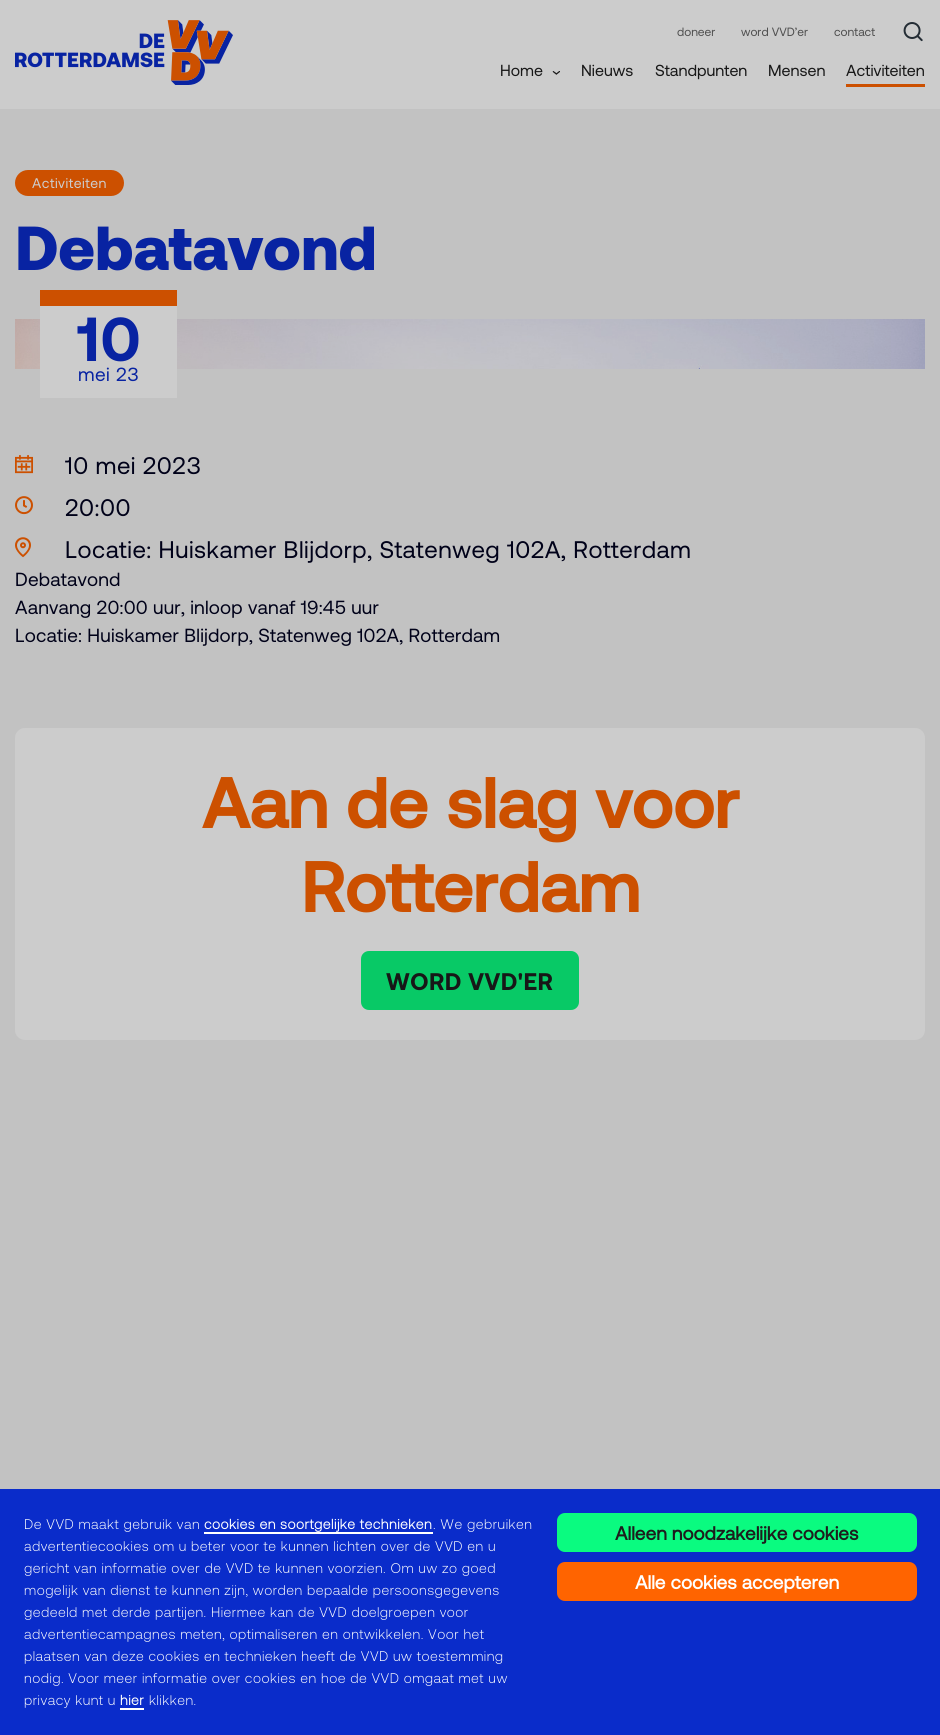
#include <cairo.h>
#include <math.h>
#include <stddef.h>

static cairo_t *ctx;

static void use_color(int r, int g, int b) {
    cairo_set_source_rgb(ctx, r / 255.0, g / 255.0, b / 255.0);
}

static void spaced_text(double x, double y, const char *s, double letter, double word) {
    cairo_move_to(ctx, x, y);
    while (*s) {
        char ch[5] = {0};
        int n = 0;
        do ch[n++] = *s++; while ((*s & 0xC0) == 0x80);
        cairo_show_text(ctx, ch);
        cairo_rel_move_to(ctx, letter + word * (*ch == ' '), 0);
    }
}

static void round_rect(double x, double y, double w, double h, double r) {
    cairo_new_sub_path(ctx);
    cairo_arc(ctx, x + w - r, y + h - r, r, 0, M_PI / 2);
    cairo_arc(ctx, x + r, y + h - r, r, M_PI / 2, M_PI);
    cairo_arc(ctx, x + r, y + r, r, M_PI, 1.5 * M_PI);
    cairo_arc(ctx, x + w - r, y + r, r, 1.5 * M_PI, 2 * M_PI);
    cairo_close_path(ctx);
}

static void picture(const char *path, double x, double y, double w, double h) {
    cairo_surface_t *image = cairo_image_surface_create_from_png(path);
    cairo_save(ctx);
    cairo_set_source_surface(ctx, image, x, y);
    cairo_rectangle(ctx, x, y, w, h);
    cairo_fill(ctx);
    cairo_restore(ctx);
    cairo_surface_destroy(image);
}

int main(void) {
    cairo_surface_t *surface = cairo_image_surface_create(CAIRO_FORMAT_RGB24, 940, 1735);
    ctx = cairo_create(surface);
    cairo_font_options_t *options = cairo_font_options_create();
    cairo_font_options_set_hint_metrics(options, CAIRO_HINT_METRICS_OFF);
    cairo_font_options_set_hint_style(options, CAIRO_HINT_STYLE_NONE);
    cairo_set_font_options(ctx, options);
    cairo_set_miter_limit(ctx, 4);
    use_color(194, 194, 194);
    cairo_paint(ctx);
    use_color(204, 204, 204);
    cairo_rectangle(ctx, 0, 0, 940, 109);
    cairo_fill(ctx);
    picture("img1.png", 15, 20, 218, 65);
    cairo_select_font_face(ctx, "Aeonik", CAIRO_FONT_SLANT_NORMAL, CAIRO_FONT_WEIGHT_NORMAL);
    cairo_set_font_size(ctx, 12);
    use_color(80, 80, 80);
    cairo_move_to(ctx, 677, 36);
    cairo_show_text(ctx, "doneer");
    cairo_move_to(ctx, 741, 36);
    cairo_show_text(ctx, "word VVD’er");
    cairo_move_to(ctx, 834, 36);
    cairo_show_text(ctx, "contact");
    picture("img2.png", 903, 22, 20, 20);
    cairo_set_font_size(ctx, 16);
    use_color(23, 23, 23);
    cairo_move_to(ctx, 500, 76);
    cairo_show_text(ctx, "Home");
    picture("img3.png", 552, 71, 8, 4);
    cairo_move_to(ctx, 581, 76);
    cairo_show_text(ctx, "Nieuws");
    cairo_move_to(ctx, 655, 76);
    cairo_show_text(ctx, "Standpunten");
    cairo_move_to(ctx, 768, 76);
    cairo_show_text(ctx, "Mensen");
    cairo_move_to(ctx, 846, 76);
    cairo_show_text(ctx, "Activiteiten");
    use_color(204, 80, 0);
    cairo_rectangle(ctx, 846, 84, 79, 3);
    cairo_fill(ctx);
    round_rect(15, 170, 109, 26, 13);
    cairo_fill(ctx);
    cairo_set_font_size(ctx, 14);
    use_color(204, 204, 204);
    spaced_text(32, 188, "Activiteiten", 0.5, 0);
    cairo_select_font_face(ctx, "Aeonik Black", CAIRO_FONT_SLANT_NORMAL, CAIRO_FONT_WEIGHT_NORMAL);
    cairo_set_font_size(ctx, 62);
    use_color(8, 35, 162);
    cairo_move_to(ctx, 15, 270);
    cairo_show_text(ctx, "Debatavond");
    picture("img4.png", 15, 319, 910, 50);
    use_color(204, 204, 204);
    cairo_rectangle(ctx, 40, 306, 137, 92);
    cairo_fill(ctx);
    use_color(204, 80, 0);
    cairo_rectangle(ctx, 40, 290, 137, 16);
    cairo_fill(ctx);
    cairo_select_font_face(ctx, "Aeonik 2", CAIRO_FONT_SLANT_NORMAL, CAIRO_FONT_WEIGHT_BOLD);
    use_color(8, 35, 162);
    spaced_text(77, 361, "10", 0.5, 0);
    cairo_select_font_face(ctx, "Aeonik", CAIRO_FONT_SLANT_NORMAL, CAIRO_FONT_WEIGHT_NORMAL);
    cairo_set_font_size(ctx, 19);
    spaced_text(78, 381, "mei", 0.5, 0);
    spaced_text(116, 381, "23", 0.5, 0);
    picture("img5.png", 15, 455, 18, 19);
    cairo_set_font_size(ctx, 24);
    use_color(0, 1, 25);
    spaced_text(65, 474, "10 mei 2023", 0.5, 0);
    picture("img6.png", 15, 496, 18, 19);
    spaced_text(65, 516, "20:00", 0.5, 0);
    picture("img7.png", 15, 537, 16, 21);
    spaced_text(65, 558, "Locatie: Huiskamer Blijdorp, Statenweg 102A, Rotterdam", 0.5, 0);
    cairo_set_font_size(ctx, 19);
    spaced_text(15, 586, "Debatavond", 0.2, 0);
    spaced_text(15, 614, "Aanvang 20:00 uur, inloop vanaf 19:45 uur", 0.2, 0);
    spaced_text(15, 642, "Locatie: Huiskamer Blijdorp, Statenweg 102A, Rotterdam", 0.2, 0);
    use_color(204, 204, 204);
    round_rect(15, 728, 910, 312, 10);
    cairo_fill(ctx);
    cairo_select_font_face(ctx, "Aeonik", CAIRO_FONT_SLANT_NORMAL, CAIRO_FONT_WEIGHT_BOLD);
    cairo_set_font_size(ctx, 70);
    use_color(204, 80, 0);
    cairo_move_to(ctx, 202, 828);
    cairo_show_text(ctx, "Aan de slag voor");
    cairo_move_to(ctx, 301, 912);
    cairo_show_text(ctx, "Rotterdam");
    use_color(8, 201, 102);
    round_rect(361, 951, 218, 59, 8);
    cairo_fill(ctx);
    cairo_select_font_face(ctx, "Aeonik 2", CAIRO_FONT_SLANT_NORMAL, CAIRO_FONT_WEIGHT_BOLD);
    cairo_set_font_size(ctx, 24);
    use_color(23, 23, 23);
    spaced_text(386, 990, "WORD VVD'ER", 0.5, 0);
    use_color(10, 44, 202);
    cairo_rectangle(ctx, 0, 1489, 940, 246);
    cairo_fill(ctx);
    cairo_select_font_face(ctx, "Aeonik Light", CAIRO_FONT_SLANT_NORMAL, CAIRO_FONT_WEIGHT_NORMAL);
    cairo_set_font_size(ctx, 14);
    use_color(255, 255, 255);
    spaced_text(24, 1529, "De VVD maakt gebruik van", 0.5, 0);
    cairo_select_font_face(ctx, "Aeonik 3", CAIRO_FONT_SLANT_NORMAL, CAIRO_FONT_WEIGHT_BOLD);
    spaced_text(204, 1529, "cookies en soortgelijke technieken", 0.5, 0);
    cairo_rectangle(ctx, 204, 1532, 229, 2);
    cairo_fill(ctx);
    cairo_select_font_face(ctx, "Aeonik Light", CAIRO_FONT_SLANT_NORMAL, CAIRO_FONT_WEIGHT_NORMAL);
    spaced_text(433, 1529, ". We gebruiken", 0.5, 0);
    spaced_text(24, 1551, "advertentiecookies om u beter voor te kunnen lichten over de VVD en u", 0.5, 0);
    spaced_text(24, 1573, "gericht van informatie over de VVD te kunnen voorzien. Om uw zo goed", 0.5, 0);
    spaced_text(24, 1595, "mogelijk van dienst te kunnen zijn, worden bepaalde persoonsgegevens", 0.5, 0);
    spaced_text(24, 1617, "gedeeld met derde partijen. Hiermee kan de VVD doelgroepen voor", 0.5, 0);
    spaced_text(24, 1639, "advertentiecampagnes meten, optimaliseren en ontwikkelen. Voor het", 0.5, 0);
    spaced_text(24, 1661, "plaatsen van deze cookies en technieken heeft de VVD uw toestemming", 0.5, 0);
    spaced_text(24, 1683, "nodig. Voor meer informatie over cookies en hoe de VVD omgaat met uw", 0.5, 0);
    spaced_text(24, 1705, "privacy kunt u", 0.5, 0);
    cairo_select_font_face(ctx, "Aeonik 3", CAIRO_FONT_SLANT_NORMAL, CAIRO_FONT_WEIGHT_BOLD);
    spaced_text(120, 1705, "hier", 0.5, 0);
    cairo_rectangle(ctx, 120, 1708, 24, 2);
    cairo_fill(ctx);
    cairo_select_font_face(ctx, "Aeonik Light", CAIRO_FONT_SLANT_NORMAL, CAIRO_FONT_WEIGHT_NORMAL);
    spaced_text(149, 1705, "klikken.", 0.5, 0);
    use_color(10, 251, 128);
    round_rect(557, 1513, 360, 39, 8);
    cairo_fill(ctx);
    cairo_select_font_face(ctx, "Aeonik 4", CAIRO_FONT_SLANT_NORMAL, CAIRO_FONT_WEIGHT_BOLD);
    cairo_set_font_size(ctx, 19);
    use_color(29, 29, 29);
    cairo_move_to(ctx, 615, 1540);
    cairo_show_text(ctx, "Alleen noodzakelijke cookies");
    use_color(255, 100, 0);
    round_rect(557, 1562, 360, 39, 8);
    cairo_fill(ctx);
    use_color(255, 255, 255);
    cairo_move_to(ctx, 635, 1589);
    cairo_show_text(ctx, "Alle cookies accepteren");
    cairo_surface_write_to_png(surface, "result.png");
    cairo_font_options_destroy(options);
    cairo_destroy(ctx);
    cairo_surface_destroy(surface);
    return 0;
}
